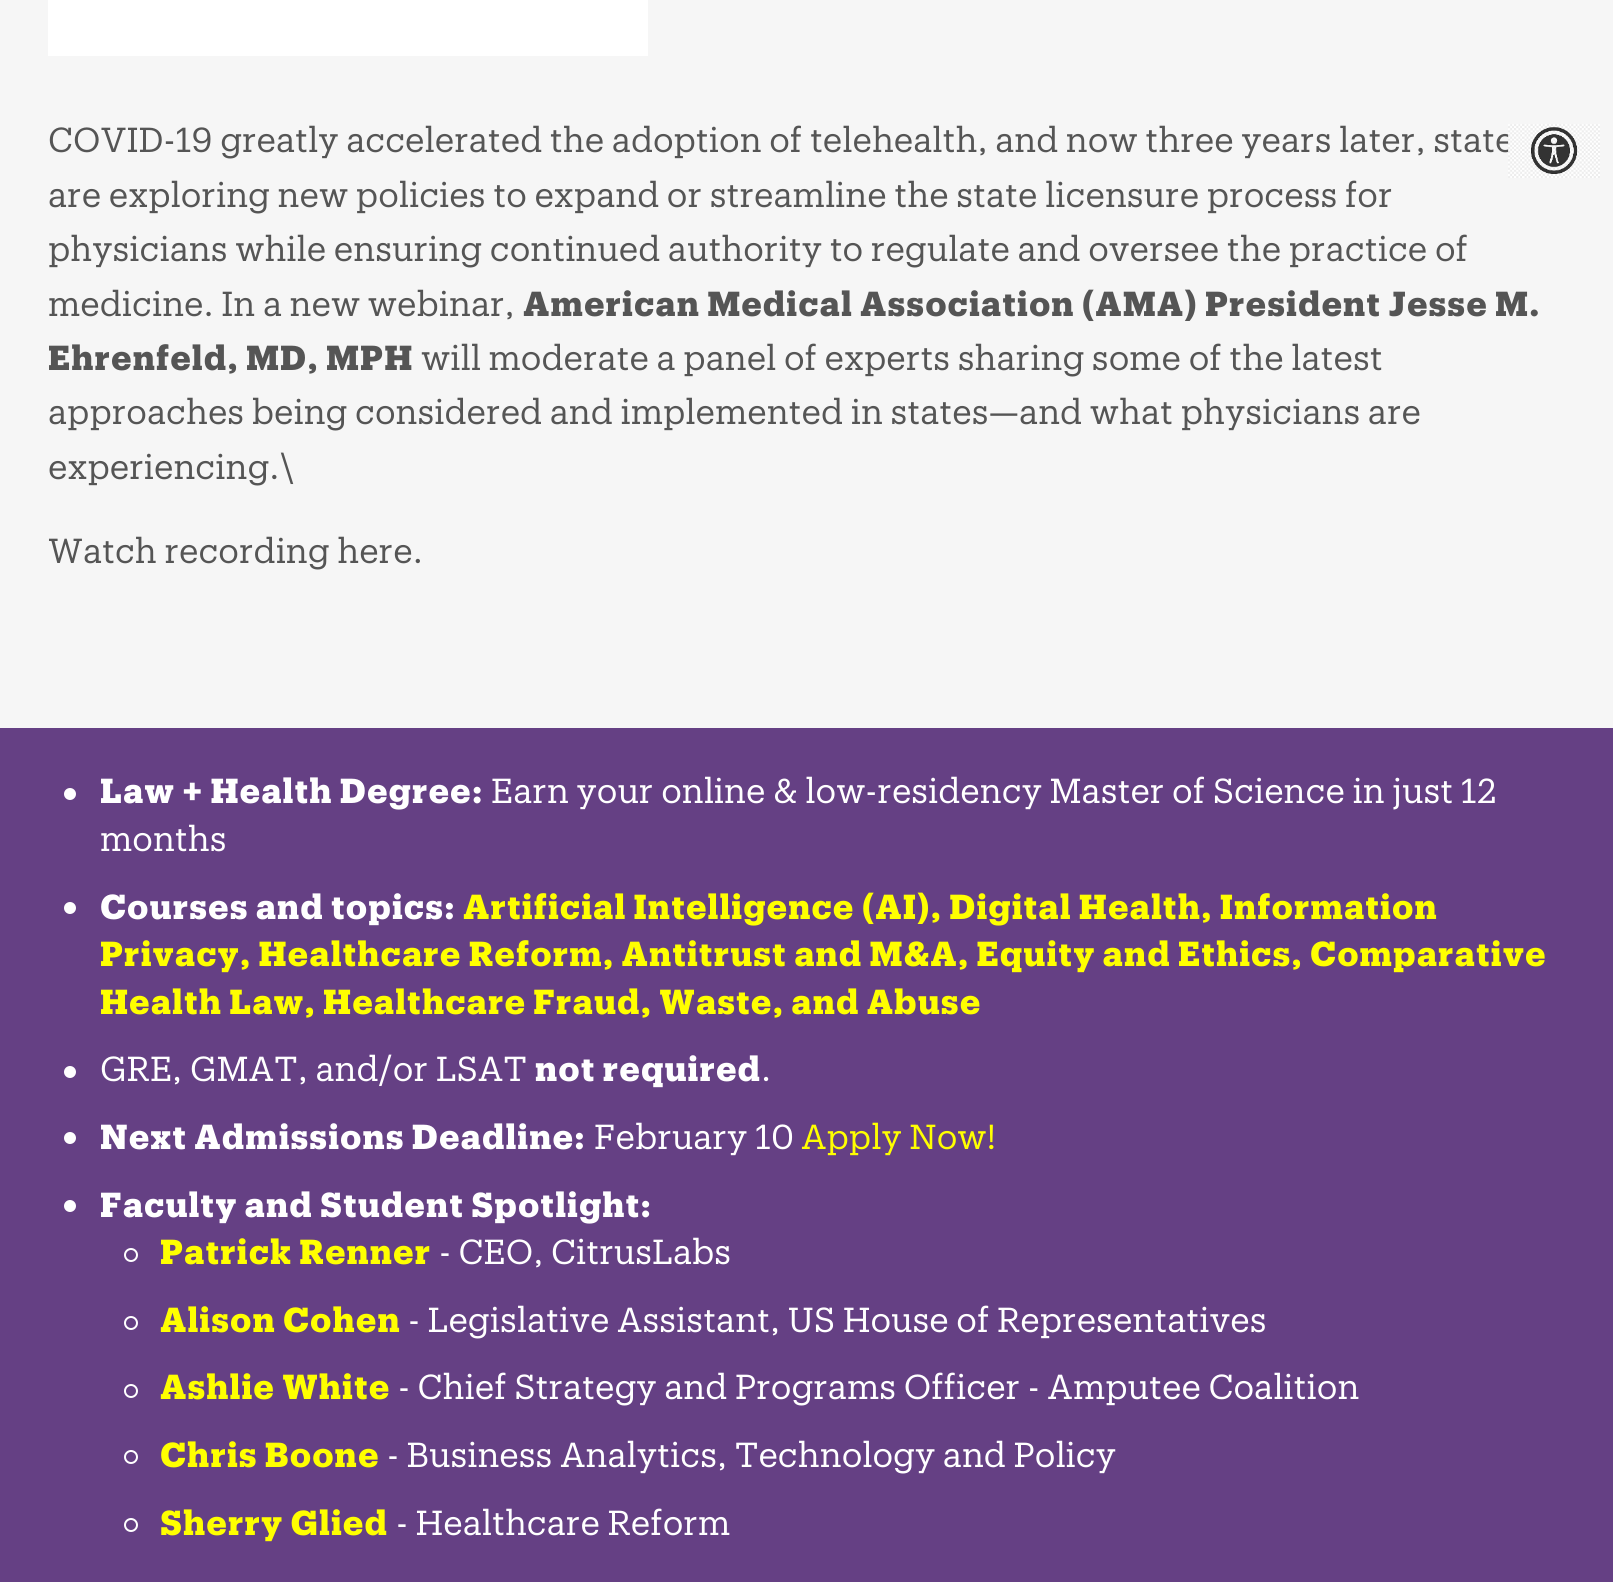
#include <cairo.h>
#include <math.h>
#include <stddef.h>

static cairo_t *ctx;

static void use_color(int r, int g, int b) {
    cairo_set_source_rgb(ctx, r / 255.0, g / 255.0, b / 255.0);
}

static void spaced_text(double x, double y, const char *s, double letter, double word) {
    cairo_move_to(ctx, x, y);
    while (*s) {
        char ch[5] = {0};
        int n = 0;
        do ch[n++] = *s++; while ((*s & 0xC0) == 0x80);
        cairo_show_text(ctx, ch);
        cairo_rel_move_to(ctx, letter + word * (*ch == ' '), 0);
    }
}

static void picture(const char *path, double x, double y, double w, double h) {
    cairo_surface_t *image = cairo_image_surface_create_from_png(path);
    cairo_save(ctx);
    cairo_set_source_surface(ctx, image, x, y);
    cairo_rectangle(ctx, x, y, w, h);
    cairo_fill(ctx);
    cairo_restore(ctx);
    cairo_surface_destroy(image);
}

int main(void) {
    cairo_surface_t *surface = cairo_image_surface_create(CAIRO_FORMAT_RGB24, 1613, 1582);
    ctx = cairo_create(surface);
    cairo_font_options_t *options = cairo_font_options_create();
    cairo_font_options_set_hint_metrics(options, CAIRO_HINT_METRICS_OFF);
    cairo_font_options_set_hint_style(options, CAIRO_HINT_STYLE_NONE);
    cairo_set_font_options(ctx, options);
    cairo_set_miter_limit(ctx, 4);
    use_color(246, 246, 246);
    cairo_paint(ctx);
    use_color(255, 255, 255);
    cairo_rectangle(ctx, 48, 0, 600, 56);
    cairo_fill(ctx);
    cairo_select_font_face(ctx, "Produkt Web", CAIRO_FONT_SLANT_NORMAL, CAIRO_FONT_WEIGHT_NORMAL);
    cairo_set_font_size(ctx, 34);
    use_color(85, 85, 85);
    cairo_move_to(ctx, 48, 152);
    cairo_show_text(ctx, "COVID-19 greatly accelerated the adoption of telehealth, and now three years later, state");
    cairo_move_to(ctx, 48, 207);
    cairo_show_text(ctx, "are exploring new policies to expand or streamline the state licensure process for");
    cairo_move_to(ctx, 48, 261);
    cairo_show_text(ctx, "physicians while ensuring continued authority to regulate and oversee the practice of");
    cairo_move_to(ctx, 48, 316);
    cairo_show_text(ctx, "medicine. In a new webinar,");
    cairo_select_font_face(ctx, "Produkt Web", CAIRO_FONT_SLANT_NORMAL, CAIRO_FONT_WEIGHT_BOLD);
    spaced_text(523, 316, "American Medical Association (AMA) President Jesse M.", 1, 0);
    spaced_text(48, 370, "Ehrenfeld, MD, MPH", 1, 0);
    cairo_select_font_face(ctx, "Produkt Web", CAIRO_FONT_SLANT_NORMAL, CAIRO_FONT_WEIGHT_NORMAL);
    cairo_move_to(ctx, 421, 370);
    cairo_show_text(ctx, "will moderate a panel of experts sharing some of the latest");
    cairo_move_to(ctx, 48, 424);
    cairo_show_text(ctx, "approaches being considered and implemented in states—and what physicians are");
    cairo_move_to(ctx, 48, 479);
    cairo_show_text(ctx, "experiencing.\\");
    cairo_move_to(ctx, 48, 563);
    cairo_show_text(ctx, "Watch recording here.");
    use_color(101, 64, 132);
    cairo_rectangle(ctx, 0, 728, 1613, 854);
    cairo_fill(ctx);
    use_color(255, 255, 255);
    cairo_arc(ctx, 70, 794, 6, 0, 2 * M_PI);
    cairo_fill(ctx);
    cairo_select_font_face(ctx, "Produkt Web", CAIRO_FONT_SLANT_NORMAL, CAIRO_FONT_WEIGHT_BOLD);
    spaced_text(100, 803, "Law + Health Degree:", 1, 0);
    cairo_select_font_face(ctx, "Produkt Web", CAIRO_FONT_SLANT_NORMAL, CAIRO_FONT_WEIGHT_NORMAL);
    cairo_move_to(ctx, 491, 803);
    cairo_show_text(ctx, "Earn your online & low-residency Master of Science in just 12");
    cairo_move_to(ctx, 100, 851);
    cairo_show_text(ctx, "months");
    cairo_new_path(ctx);
    cairo_arc(ctx, 70, 908, 6, 0, 2 * M_PI);
    cairo_fill(ctx);
    cairo_select_font_face(ctx, "Produkt Web", CAIRO_FONT_SLANT_NORMAL, CAIRO_FONT_WEIGHT_BOLD);
    spaced_text(100, 919, "Courses and topics:", 1, 0);
    use_color(255, 255, 0);
    spaced_text(463, 919, "Artificial Intelligence (AI), Digital Health, Information", 1, 0);
    spaced_text(100, 966, "Privacy, Healthcare Reform, Antitrust and M&A, Equity and Ethics, Comparative", 1, 0);
    spaced_text(100, 1014, "Health Law, Healthcare Fraud, Waste, and Abuse", 1, 0);
    use_color(255, 255, 255);
    cairo_new_path(ctx);
    cairo_arc(ctx, 70, 1072, 6, 0, 2 * M_PI);
    cairo_fill(ctx);
    cairo_select_font_face(ctx, "Produkt Web", CAIRO_FONT_SLANT_NORMAL, CAIRO_FONT_WEIGHT_NORMAL);
    cairo_move_to(ctx, 100, 1081);
    cairo_show_text(ctx, "GRE, GMAT, and/or LSAT");
    cairo_select_font_face(ctx, "Produkt Web", CAIRO_FONT_SLANT_NORMAL, CAIRO_FONT_WEIGHT_BOLD);
    spaced_text(535, 1081, "not required", 1, 0);
    cairo_select_font_face(ctx, "Produkt Web", CAIRO_FONT_SLANT_NORMAL, CAIRO_FONT_WEIGHT_NORMAL);
    cairo_move_to(ctx, 761, 1081);
    cairo_show_text(ctx, ".");
    cairo_new_path(ctx);
    cairo_arc(ctx, 70, 1138, 6, 0, 2 * M_PI);
    cairo_fill(ctx);
    cairo_select_font_face(ctx, "Produkt Web", CAIRO_FONT_SLANT_NORMAL, CAIRO_FONT_WEIGHT_BOLD);
    spaced_text(100, 1149, "Next Admissions Deadline:", 1, 0);
    cairo_select_font_face(ctx, "Produkt Web", CAIRO_FONT_SLANT_NORMAL, CAIRO_FONT_WEIGHT_NORMAL);
    cairo_move_to(ctx, 594, 1149);
    cairo_show_text(ctx, "February 10");
    use_color(255, 255, 0);
    cairo_move_to(ctx, 801, 1149);
    cairo_show_text(ctx, "Apply Now!");
    use_color(255, 255, 255);
    cairo_new_path(ctx);
    cairo_arc(ctx, 70, 1206, 6, 0, 2 * M_PI);
    cairo_fill(ctx);
    cairo_select_font_face(ctx, "Produkt Web", CAIRO_FONT_SLANT_NORMAL, CAIRO_FONT_WEIGHT_BOLD);
    spaced_text(100, 1217, "Faculty and Student Spotlight:", 1, 0);
    cairo_new_path(ctx);
    cairo_arc(ctx, 131, 1255, 6, 0, 2 * M_PI);
    cairo_stroke(ctx);
    use_color(255, 255, 0);
    spaced_text(160, 1264, "Patrick Renner", 1, 0);
    cairo_select_font_face(ctx, "Produkt Web", CAIRO_FONT_SLANT_NORMAL, CAIRO_FONT_WEIGHT_NORMAL);
    use_color(255, 255, 255);
    cairo_move_to(ctx, 439, 1264);
    cairo_show_text(ctx, "- CEO, CitrusLabs");
    cairo_new_path(ctx);
    cairo_arc(ctx, 131, 1323, 6, 0, 2 * M_PI);
    cairo_stroke(ctx);
    cairo_select_font_face(ctx, "Produkt Web", CAIRO_FONT_SLANT_NORMAL, CAIRO_FONT_WEIGHT_BOLD);
    use_color(255, 255, 0);
    spaced_text(160, 1332, "Alison Cohen", 1, 0);
    cairo_select_font_face(ctx, "Produkt Web", CAIRO_FONT_SLANT_NORMAL, CAIRO_FONT_WEIGHT_NORMAL);
    use_color(255, 255, 255);
    cairo_move_to(ctx, 408, 1332);
    cairo_show_text(ctx, "- Legislative Assistant, US House of Representatives");
    cairo_new_path(ctx);
    cairo_arc(ctx, 131, 1391, 6, 0, 2 * M_PI);
    cairo_stroke(ctx);
    cairo_select_font_face(ctx, "Produkt Web", CAIRO_FONT_SLANT_NORMAL, CAIRO_FONT_WEIGHT_BOLD);
    use_color(255, 255, 0);
    spaced_text(160, 1399, "Ashlie White", 1, 0);
    cairo_select_font_face(ctx, "Produkt Web", CAIRO_FONT_SLANT_NORMAL, CAIRO_FONT_WEIGHT_NORMAL);
    use_color(255, 255, 255);
    cairo_move_to(ctx, 398, 1399);
    cairo_show_text(ctx, "- Chief Strategy and Programs Officer - Amputee Coalition");
    cairo_new_path(ctx);
    cairo_arc(ctx, 131, 1457, 6, 0, 2 * M_PI);
    cairo_stroke(ctx);
    cairo_select_font_face(ctx, "Produkt Web", CAIRO_FONT_SLANT_NORMAL, CAIRO_FONT_WEIGHT_BOLD);
    use_color(255, 255, 0);
    spaced_text(160, 1467, "Chris Boone", 1, 0);
    cairo_select_font_face(ctx, "Produkt Web", CAIRO_FONT_SLANT_NORMAL, CAIRO_FONT_WEIGHT_NORMAL);
    use_color(255, 255, 255);
    cairo_move_to(ctx, 387, 1467);
    cairo_show_text(ctx, "- Business Analytics, Technology and Policy");
    cairo_new_path(ctx);
    cairo_arc(ctx, 131, 1525, 6, 0, 2 * M_PI);
    cairo_stroke(ctx);
    cairo_select_font_face(ctx, "Produkt Web", CAIRO_FONT_SLANT_NORMAL, CAIRO_FONT_WEIGHT_BOLD);
    use_color(255, 255, 0);
    spaced_text(160, 1535, "Sherry Glied", 1, 0);
    cairo_select_font_face(ctx, "Produkt Web", CAIRO_FONT_SLANT_NORMAL, CAIRO_FONT_WEIGHT_NORMAL);
    use_color(255, 255, 255);
    cairo_move_to(ctx, 396, 1535);
    cairo_show_text(ctx, "- Healthcare Reform");
    picture("img1.png", 1508, 124, 92, 54);
    cairo_surface_write_to_png(surface, "result.png");
    cairo_font_options_destroy(options);
    cairo_destroy(ctx);
    cairo_surface_destroy(surface);
    return 0;
}
